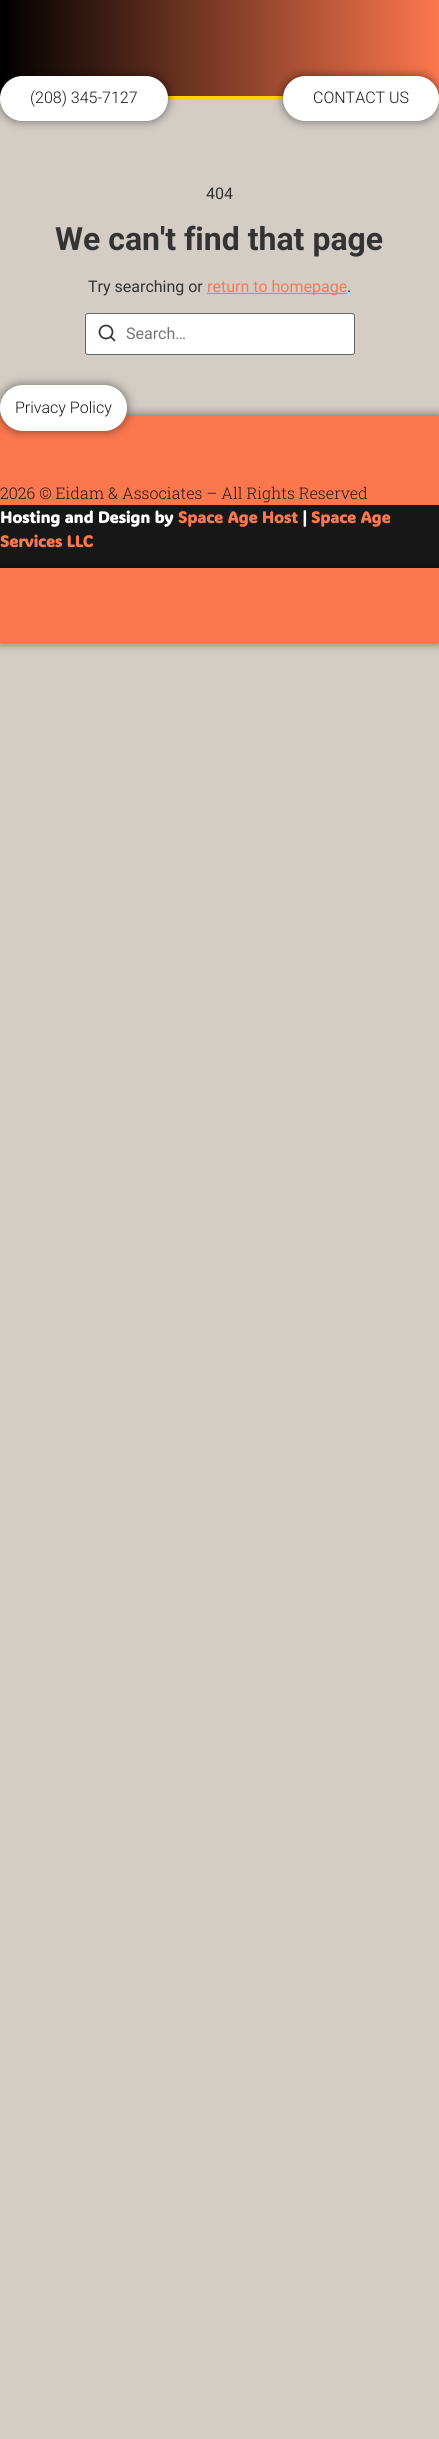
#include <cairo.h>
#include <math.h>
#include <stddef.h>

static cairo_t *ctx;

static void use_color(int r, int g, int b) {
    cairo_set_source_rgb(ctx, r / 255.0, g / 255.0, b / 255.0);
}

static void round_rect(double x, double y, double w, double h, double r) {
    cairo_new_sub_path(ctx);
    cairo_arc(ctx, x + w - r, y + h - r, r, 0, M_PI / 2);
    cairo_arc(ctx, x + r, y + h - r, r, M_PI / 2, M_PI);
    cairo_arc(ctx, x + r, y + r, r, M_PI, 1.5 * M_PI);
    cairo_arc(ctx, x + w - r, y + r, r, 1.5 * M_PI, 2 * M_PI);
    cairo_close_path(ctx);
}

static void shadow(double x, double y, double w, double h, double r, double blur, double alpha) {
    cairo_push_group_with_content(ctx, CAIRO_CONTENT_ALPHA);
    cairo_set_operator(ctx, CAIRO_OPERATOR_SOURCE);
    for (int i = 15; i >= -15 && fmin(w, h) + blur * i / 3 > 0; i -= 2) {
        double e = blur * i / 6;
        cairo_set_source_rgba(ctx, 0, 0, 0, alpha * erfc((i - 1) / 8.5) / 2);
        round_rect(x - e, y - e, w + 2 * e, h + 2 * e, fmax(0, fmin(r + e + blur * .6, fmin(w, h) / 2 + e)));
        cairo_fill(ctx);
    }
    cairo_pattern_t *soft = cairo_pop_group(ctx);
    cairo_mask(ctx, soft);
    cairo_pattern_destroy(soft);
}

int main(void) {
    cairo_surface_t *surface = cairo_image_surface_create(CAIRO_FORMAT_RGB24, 439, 2439);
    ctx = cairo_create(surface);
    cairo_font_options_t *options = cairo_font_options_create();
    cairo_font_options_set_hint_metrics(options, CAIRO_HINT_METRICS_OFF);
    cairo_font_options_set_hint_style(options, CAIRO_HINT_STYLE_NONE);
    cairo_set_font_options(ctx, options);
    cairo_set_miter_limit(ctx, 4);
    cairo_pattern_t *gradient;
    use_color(211, 205, 198);
    cairo_paint(ctx);
    gradient = cairo_pattern_create_linear(439, 50, 0, 50);
    cairo_pattern_add_color_stop_rgba(gradient, 0, 0.992, 0.467, 0.306, 1);
    cairo_pattern_add_color_stop_rgba(gradient, 1, 0, 0, 0, 1);
    cairo_set_source(ctx, gradient);
    cairo_pattern_destroy(gradient);
    cairo_rectangle(ctx, 0, 0, 439, 96);
    cairo_fill(ctx);
    use_color(255, 215, 0);
    cairo_rectangle(ctx, 0, 96, 439, 4);
    cairo_fill(ctx);
    use_color(0, 0, 0);
    shadow(0, 76, 168, 45, 22.5, 5, 0.5);
    use_color(255, 255, 255);
    round_rect(0, 76, 168, 45, 22.5);
    cairo_fill(ctx);
    cairo_select_font_face(ctx, "Roboto Light", CAIRO_FONT_SLANT_NORMAL, CAIRO_FONT_WEIGHT_NORMAL);
    cairo_set_font_size(ctx, 16);
    use_color(23, 23, 23);
    cairo_move_to(ctx, 30, 103);
    cairo_show_text(ctx, "(208) 345-7127");
    use_color(0, 0, 0);
    shadow(283, 76, 156, 45, 22.5, 5, 0.5);
    use_color(255, 255, 255);
    round_rect(283, 76, 156, 45, 22.5);
    cairo_fill(ctx);
    use_color(23, 23, 23);
    cairo_move_to(ctx, 313, 103);
    cairo_show_text(ctx, "CONTACT US");
    cairo_select_font_face(ctx, "Roboto", CAIRO_FONT_SLANT_NORMAL, CAIRO_FONT_WEIGHT_NORMAL);
    use_color(51, 51, 51);
    cairo_move_to(ctx, 206, 199);
    cairo_show_text(ctx, "404");
    cairo_select_font_face(ctx, "Roboto", CAIRO_FONT_SLANT_NORMAL, CAIRO_FONT_WEIGHT_BOLD);
    cairo_set_font_size(ctx, 32);
    cairo_move_to(ctx, 55, 250);
    cairo_show_text(ctx, "We can't find that page");
    cairo_select_font_face(ctx, "Roboto", CAIRO_FONT_SLANT_NORMAL, CAIRO_FONT_WEIGHT_NORMAL);
    cairo_set_font_size(ctx, 16);
    cairo_move_to(ctx, 88, 292);
    cairo_show_text(ctx, "Try searching or");
    use_color(253, 119, 78);
    cairo_rectangle(ctx, 207, 293, 140, 1);
    cairo_fill(ctx);
    cairo_move_to(ctx, 207, 292);
    cairo_show_text(ctx, "return to homepage");
    use_color(51, 51, 51);
    cairo_move_to(ctx, 347, 292);
    cairo_show_text(ctx, ".");
    use_color(255, 255, 255);
    round_rect(85.5, 313.5, 269, 41, 2.5);
    cairo_fill_preserve(ctx);
    use_color(102, 102, 102);
    cairo_set_line_width(ctx, 1);
    cairo_stroke(ctx);
    cairo_arc(ctx, 106, 332, 6.5, 0, 2 * M_PI);
    use_color(51, 51, 51);
    cairo_set_line_width(ctx, 1.7);
    cairo_stroke(ctx);
    cairo_new_path(ctx);
    cairo_move_to(ctx, 114.5, 340.5);
    cairo_line_to(ctx, 111, 337);
    cairo_set_line_cap(ctx, CAIRO_LINE_CAP_ROUND);
    cairo_set_line_join(ctx, CAIRO_LINE_JOIN_ROUND);
    cairo_stroke(ctx);
    use_color(117, 117, 117);
    cairo_move_to(ctx, 126, 339);
    cairo_show_text(ctx, "Search…");
    use_color(253, 119, 78);
    cairo_rectangle(ctx, 0, 415, 439, 228);
    cairo_fill(ctx);
    cairo_save(ctx);
    cairo_rectangle(ctx, 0, 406, 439, 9);
    cairo_clip(ctx);
    use_color(0, 0, 0);
    shadow(0, 415, 439, 90, 0, 5, 0.5);
    cairo_restore(ctx);
    use_color(0, 0, 0);
    shadow(0, 385, 127, 46, 23, 5, 0.5);
    use_color(255, 255, 255);
    round_rect(0, 385, 127, 46, 23);
    cairo_fill(ctx);
    cairo_select_font_face(ctx, "Roboto Light", CAIRO_FONT_SLANT_NORMAL, CAIRO_FONT_WEIGHT_NORMAL);
    use_color(23, 23, 23);
    cairo_move_to(ctx, 15, 413);
    cairo_show_text(ctx, "Privacy Policy");
    cairo_select_font_face(ctx, "Roboto Slab Light", CAIRO_FONT_SLANT_NORMAL, CAIRO_FONT_WEIGHT_NORMAL);
    cairo_move_to(ctx, 0, 499);
    cairo_show_text(ctx, "2026 © Eidam & Associates – All Rights Reserved");
    cairo_rectangle(ctx, 0, 505, 439, 63);
    cairo_fill(ctx);
    cairo_select_font_face(ctx, "ADLaM Display", CAIRO_FONT_SLANT_NORMAL, CAIRO_FONT_WEIGHT_BOLD);
    use_color(255, 255, 255);
    cairo_move_to(ctx, 0, 523);
    cairo_show_text(ctx, "Hosting and Design by");
    use_color(253, 119, 78);
    cairo_move_to(ctx, 178, 523);
    cairo_show_text(ctx, "Space Age Host");
    use_color(255, 255, 255);
    cairo_move_to(ctx, 302, 523);
    cairo_show_text(ctx, "|");
    use_color(253, 119, 78);
    cairo_move_to(ctx, 311, 523);
    cairo_show_text(ctx, "Space Age");
    cairo_move_to(ctx, 0, 547);
    cairo_show_text(ctx, "Services LLC");
    cairo_save(ctx);
    cairo_set_fill_rule(ctx, CAIRO_FILL_RULE_EVEN_ODD);
    cairo_new_path(ctx);
    cairo_move_to(ctx, 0, 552);
    cairo_line_to(ctx, 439, 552);
    cairo_line_to(ctx, 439, 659);
    cairo_line_to(ctx, 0, 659);
    cairo_close_path(ctx);
    cairo_move_to(ctx, 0, 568);
    cairo_line_to(ctx, 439, 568);
    cairo_line_to(ctx, 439, 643);
    cairo_line_to(ctx, 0, 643);
    cairo_close_path(ctx);
    cairo_clip(ctx);
    use_color(0, 0, 0);
    shadow(0, 568, 439, 75, 0, 5, 0.5);
    cairo_restore(ctx);
    cairo_surface_write_to_png(surface, "result.png");
    cairo_font_options_destroy(options);
    cairo_destroy(ctx);
    cairo_surface_destroy(surface);
    return 0;
}
